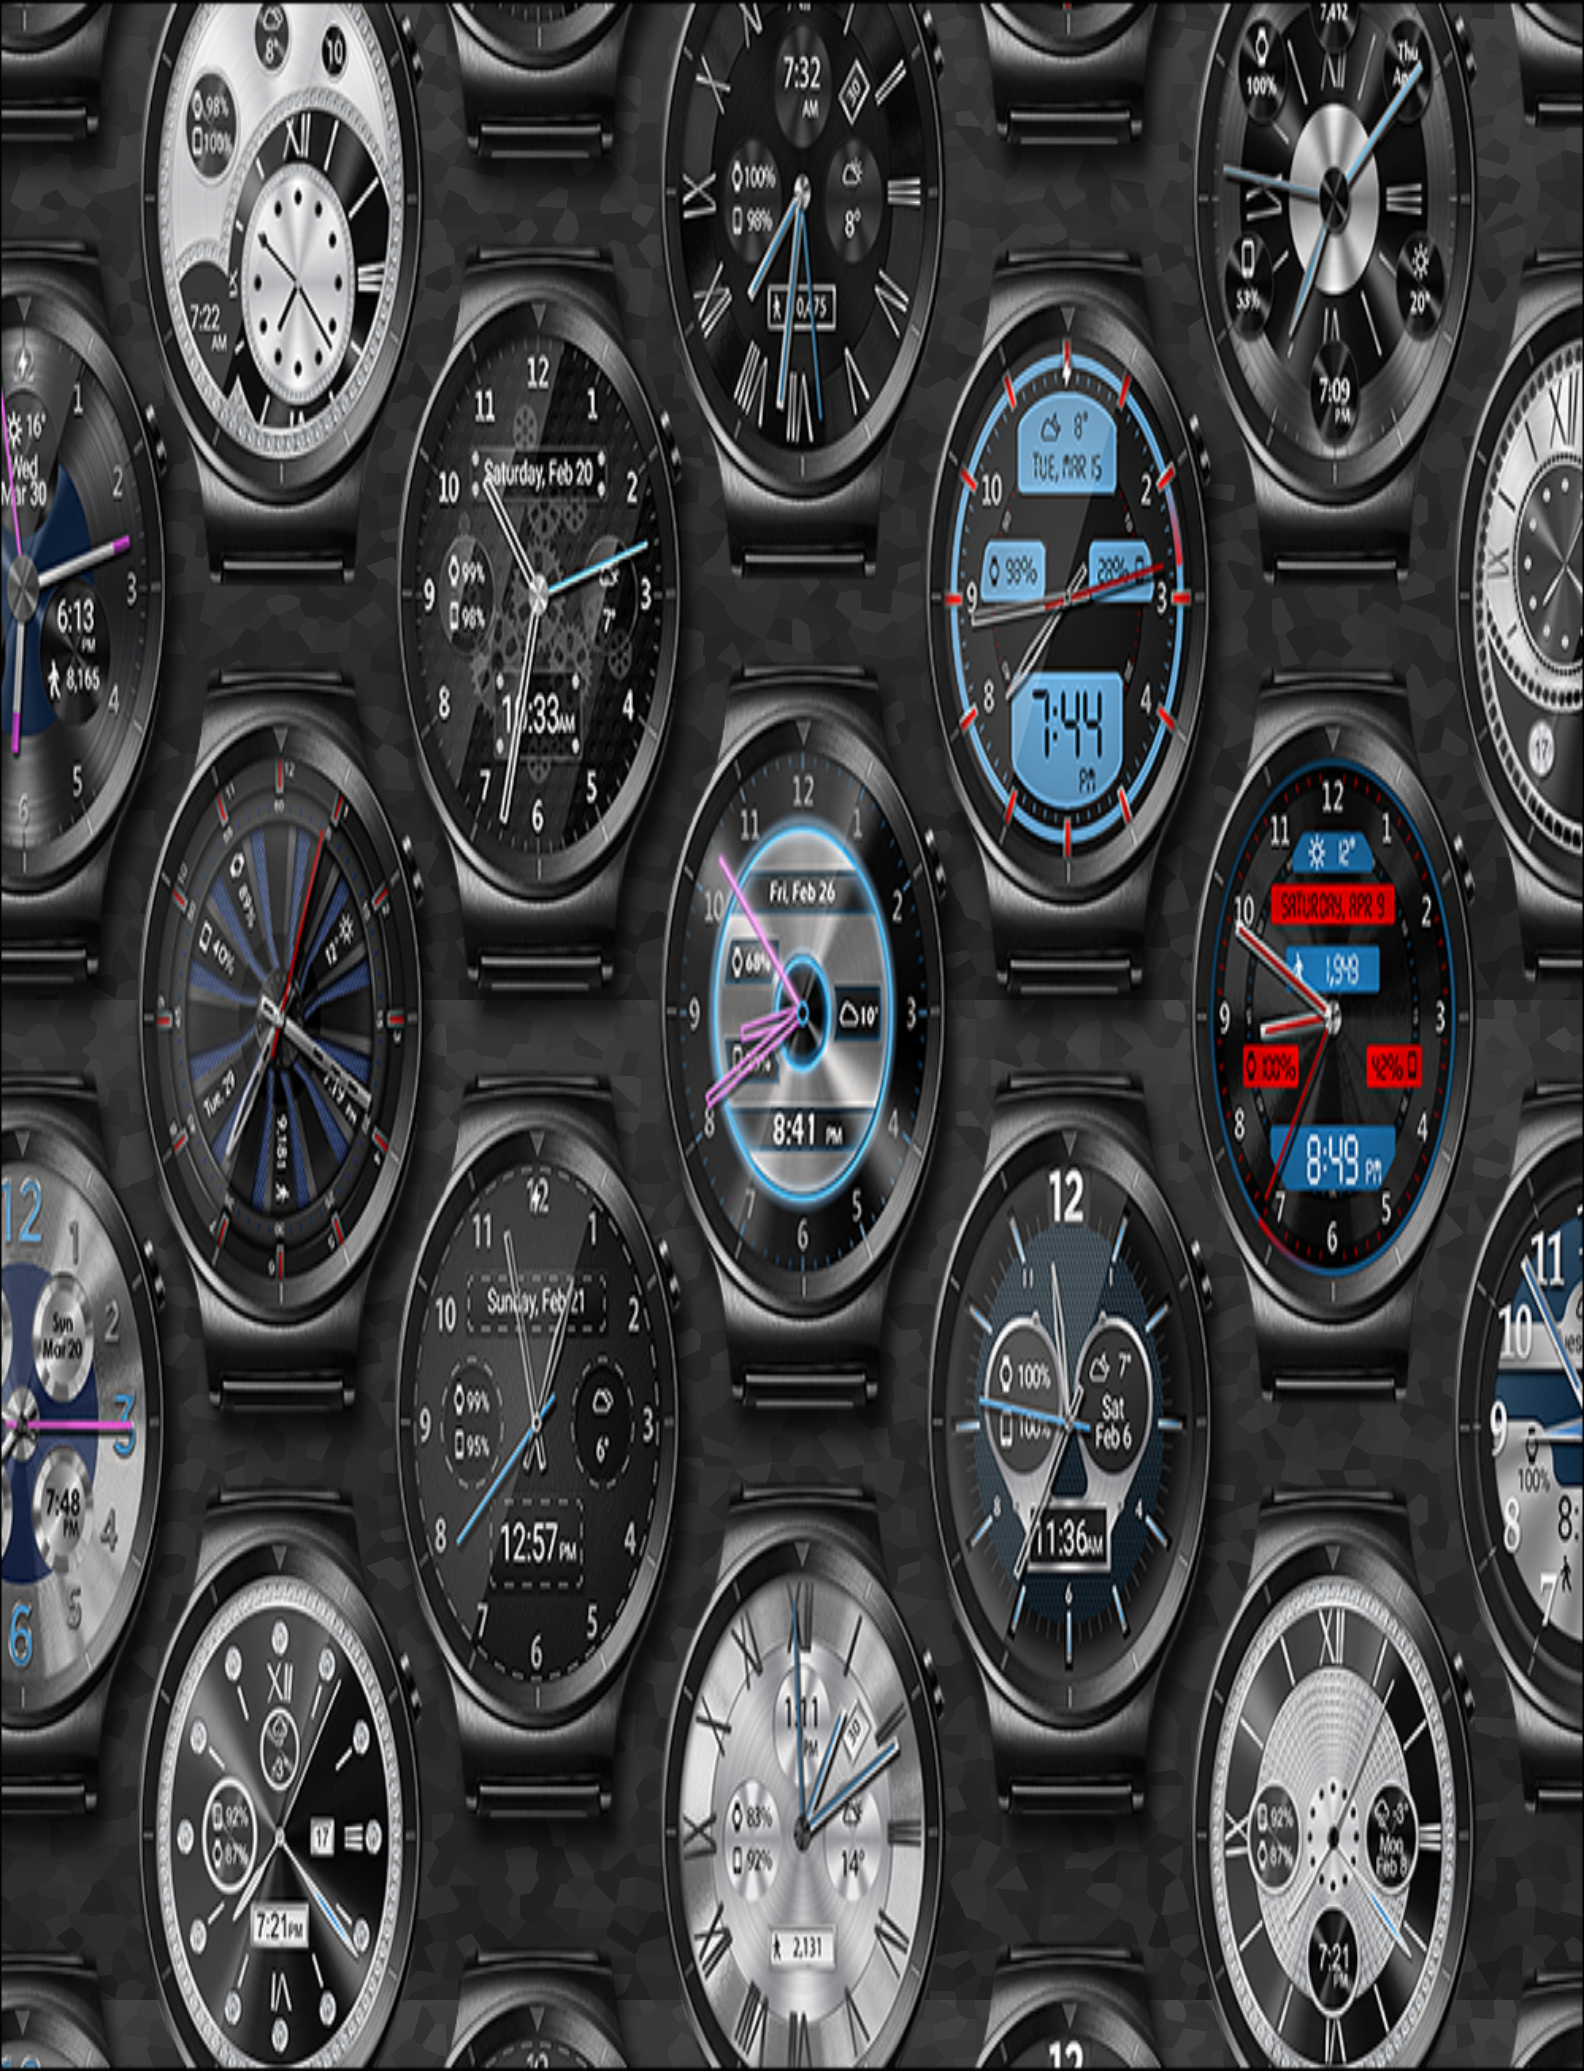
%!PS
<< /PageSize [1584 2071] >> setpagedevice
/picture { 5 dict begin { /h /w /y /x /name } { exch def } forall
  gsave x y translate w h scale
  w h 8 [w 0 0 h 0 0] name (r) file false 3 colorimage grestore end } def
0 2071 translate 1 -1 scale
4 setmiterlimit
1 setgray
0 0 1584 2071 rectfill
(img1.rgb) 0 0 1584 2071 picture
(img2.rgb) 0 0 1584 2071 picture
showpage
